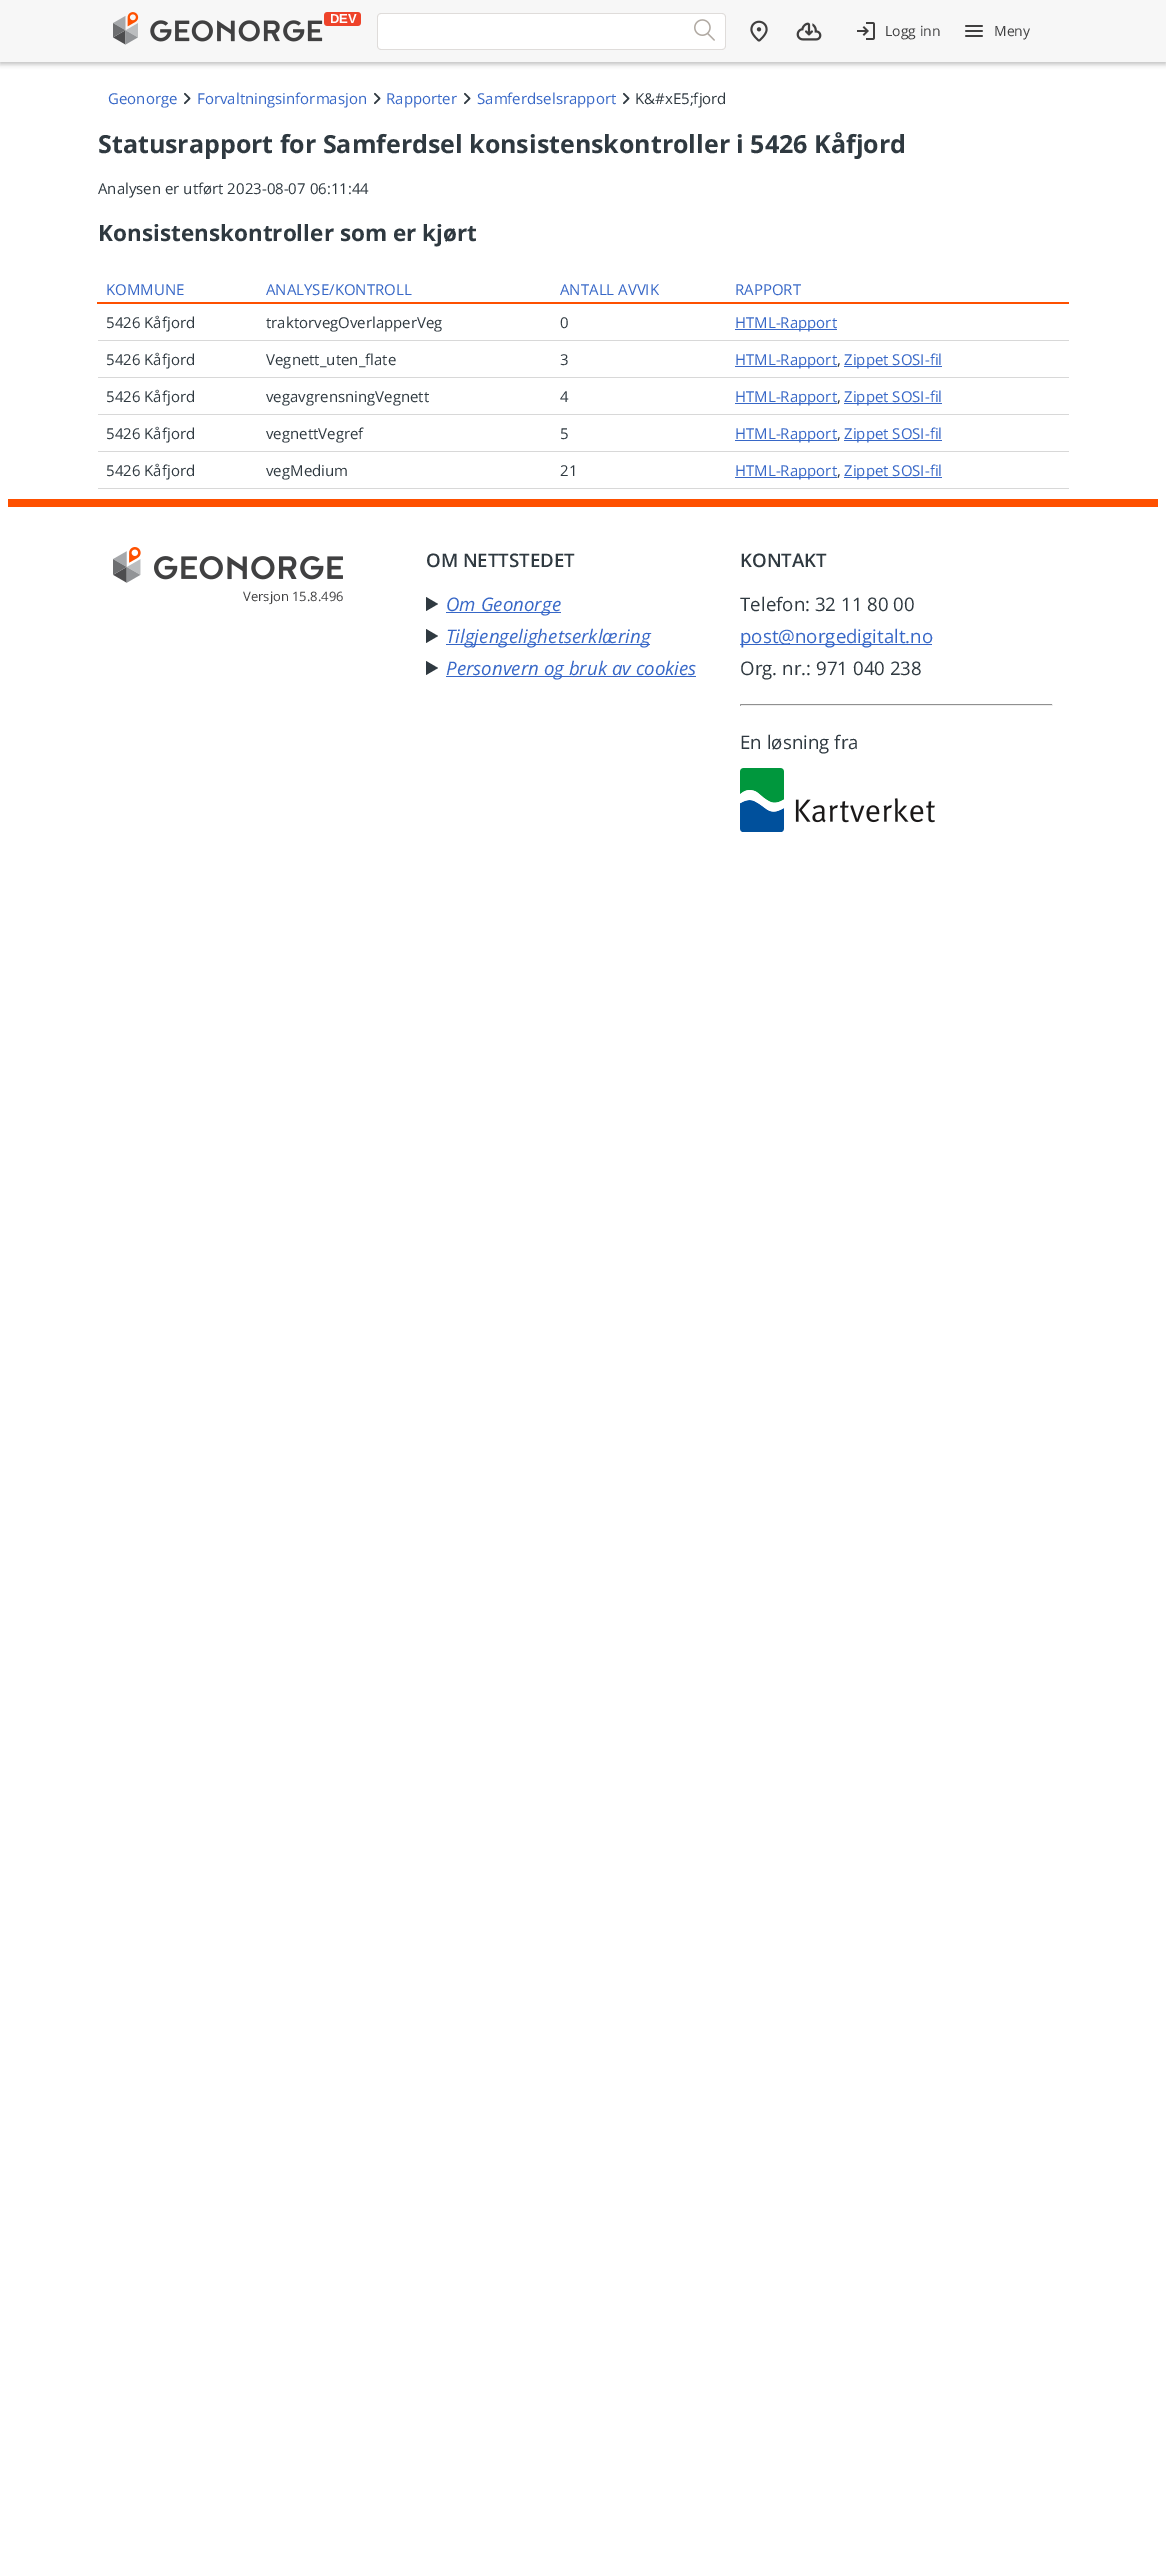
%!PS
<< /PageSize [1166 2558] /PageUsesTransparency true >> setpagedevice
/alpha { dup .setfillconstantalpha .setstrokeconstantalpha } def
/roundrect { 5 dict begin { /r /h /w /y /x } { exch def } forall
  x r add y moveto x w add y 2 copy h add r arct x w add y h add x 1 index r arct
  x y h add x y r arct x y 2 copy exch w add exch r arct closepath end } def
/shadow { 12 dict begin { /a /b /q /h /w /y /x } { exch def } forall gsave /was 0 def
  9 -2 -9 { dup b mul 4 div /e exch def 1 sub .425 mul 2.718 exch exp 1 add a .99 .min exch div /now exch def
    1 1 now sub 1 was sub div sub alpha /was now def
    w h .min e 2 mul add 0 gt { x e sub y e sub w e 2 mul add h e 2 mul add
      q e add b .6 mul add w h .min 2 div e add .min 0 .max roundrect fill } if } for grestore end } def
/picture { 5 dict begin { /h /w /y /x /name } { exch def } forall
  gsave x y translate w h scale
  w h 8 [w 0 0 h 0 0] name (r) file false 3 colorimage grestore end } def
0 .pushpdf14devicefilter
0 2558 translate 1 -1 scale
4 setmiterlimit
1 setgray
0 0 1166 2558 rectfill
0 setgray
0 2 1166 62 0 2.5 0.26 shadow
0.969 setgray
0 0 1166 62 rectfill
(img1.rgb) 113 12 248 33 picture
/LiberationSans-Bold [13 0 0 -13 0 0] selectfont
1 setgray
330 23 moveto (DEV) show
newpath 381 13 moveto 684 13 lineto 684 50 lineto 381 50 lineto 379 50 377 48 377 46 curveto 377 17 lineto 377 15 379 13 381 13 curveto closepath fill
0.875 0.863 0.855 setrgbcolor
newpath 381 13 moveto 684 13 lineto 684 50 lineto 381 50 lineto 379 50 377 48 377 46 curveto 377 17 lineto 377 15 379 13 381 13 curveto closepath 381 14 moveto 684 14 lineto 684 49 lineto 381 49 lineto 379 49 378 48 378 46 curveto 378 17 lineto 378 15 379 14 381 14 curveto closepath eofill
1 setgray
newpath 684 13 moveto 722 13 lineto 724 13 726 15 726 17 curveto 726 46 lineto 726 48 724 50 722 50 curveto 684 50 lineto closepath fill
0.875 0.863 0.855 setrgbcolor
newpath 684 13 moveto 722 13 lineto 724 13 726 15 726 17 curveto 726 46 lineto 726 48 724 50 722 50 curveto 684 50 lineto closepath 684 14 moveto 722 14 lineto 724 14 725 15 725 17 curveto 725 46 lineto 725 48 724 49 722 49 curveto 684 49 lineto closepath eofill
(img2.rgb) 694 19 21 22 picture
(img3.rgb) 750 20 18 22 picture
(img4.rgb) 796 22 26 19 picture
(img5.rgb) 857 22 18 18 picture
/OpenSans-Regular [14 0 0 -14 0 0] selectfont
0.251 0.251 0.255 setrgbcolor
885 36 moveto (Logg inn) show
(img6.rgb) 965 25 18 12 picture
994 36 moveto (Meny) show
/OpenSans-Regular [15 0 0 -15 0 0] selectfont
0.216 0.404 0.78 setrgbcolor
108 104 moveto (Geonorge) show
(img7.rgb) 184 92 7 13 picture
197 104 moveto (Forvaltningsinformasjon) show
(img7.rgb) 374 92 7 13 picture
386 104 moveto (Rapporter) show
(img7.rgb) 464 92 7 13 picture
477 104 moveto (Samferdselsrapport) show
(img7.rgb) 623 92 7 13 picture
0.184 0.224 0.251 setrgbcolor
635 104 moveto (K&#xE5;fjord) show
/OpenSans-Bold [25 0 0 -25 0 0] selectfont
98 153 moveto (Statusrapport for Samferdsel konsistenskontroller i 5426 Kåfjord) show
/OpenSans-Regular [15 0 0 -15 0 0] selectfont
98 194 moveto (Analysen er utført 2023-08-07 06:11:44) show
/OpenSans-Bold [22.5 0 0 -22.5 0 0] selectfont
98 241 moveto (Konsistenskontroller som er kjørt) show
/OpenSans-Regular [15 0 0 -15 0 0] selectfont
0.216 0.404 0.78 setrgbcolor
106 295 moveto (KOMMUNE) show
266 295 moveto (ANALYSE/KONTROLL) show
560 295 moveto (ANTALL AVVIK) show
0.996 0.314 0 setrgbcolor
97 302 972 2 rectfill
0.216 0.404 0.78 setrgbcolor
735 295 moveto (RAPPORT) show
0.184 0.224 0.251 setrgbcolor
106 328 moveto (5426 Kåfjord) show
266 328 moveto (traktorvegOverlapperVeg) show
560 328 moveto (0) show
0.847 setgray
98 340 971 1 rectfill
0.216 0.404 0.78 setrgbcolor
735 329 102 1 rectfill
735 328 moveto (HTML-Rapport) show
0.184 0.224 0.251 setrgbcolor
106 365 moveto (5426 Kåfjord) show
266 365 moveto (Vegnett_uten_flate) show
560 365 moveto (3) show
0.847 setgray
98 377 971 1 rectfill
0.216 0.404 0.78 setrgbcolor
735 366 102 1 rectfill
735 365 moveto (HTML-Rapport) show
0.184 0.224 0.251 setrgbcolor
837 365 moveto (,) show
0.216 0.404 0.78 setrgbcolor
844 366 98 1 rectfill
844 365 moveto (Zippet SOSI-fil) show
0.184 0.224 0.251 setrgbcolor
106 402 moveto (5426 Kåfjord) show
266 402 moveto (vegavgrensningVegnett) show
560 402 moveto (4) show
0.847 setgray
98 414 971 1 rectfill
0.216 0.404 0.78 setrgbcolor
735 403 102 1 rectfill
735 402 moveto (HTML-Rapport) show
0.184 0.224 0.251 setrgbcolor
837 402 moveto (,) show
0.216 0.404 0.78 setrgbcolor
844 403 98 1 rectfill
844 402 moveto (Zippet SOSI-fil) show
0.184 0.224 0.251 setrgbcolor
106 439 moveto (5426 Kåfjord) show
266 439 moveto (vegnettVegref) show
560 439 moveto (5) show
0.847 setgray
98 451 971 1 rectfill
0.216 0.404 0.78 setrgbcolor
735 440 102 1 rectfill
735 439 moveto (HTML-Rapport) show
0.184 0.224 0.251 setrgbcolor
837 439 moveto (,) show
0.216 0.404 0.78 setrgbcolor
844 440 98 1 rectfill
844 439 moveto (Zippet SOSI-fil) show
0.184 0.224 0.251 setrgbcolor
106 476 moveto (5426 Kåfjord) show
266 476 moveto (vegMedium) show
560 476 moveto (21) show
0.847 setgray
98 488 971 1 rectfill
0.216 0.404 0.78 setrgbcolor
735 477 102 1 rectfill
735 476 moveto (HTML-Rapport) show
0.184 0.224 0.251 setrgbcolor
837 476 moveto (,) show
0.216 0.404 0.78 setrgbcolor
844 477 98 1 rectfill
844 476 moveto (Zippet SOSI-fil) show
0.996 0.314 0 setrgbcolor
8 499 1150 8 rectfill
(img8.rgb) 113 547 230 36 picture
/OpenSans-Regular [13 0 0 -13 0 0] selectfont
0.251 0.251 0.255 setrgbcolor
243 601 moveto (Versjon 15.8.496) show
/OpenSans-SemiBold [18.7 0 0 -18.7 0 0] selectfont
0.184 0.224 0.251 setrgbcolor
426 567 moveto (OM NETTSTEDET) show
newpath 426 611 moveto 426 597 lineto 438 604 lineto closepath fill
0.216 0.404 0.78 setrgbcolor
446 612 115 1 rectfill
/OpenSans-Italic [18.7 0 0 -18.7 0 0] selectfont
446 611 moveto (Om Geonorge) show
0.184 0.224 0.251 setrgbcolor
newpath 426 643 moveto 426 629 lineto 438 636 lineto closepath fill
0.216 0.404 0.78 setrgbcolor
446 644 204 1 rectfill
446 643 moveto (Tilgjengelighetserklæring) show
0.184 0.224 0.251 setrgbcolor
newpath 426 675 moveto 426 661 lineto 438 668 lineto closepath fill
0.216 0.404 0.78 setrgbcolor
446 676 250 1 rectfill
446 675 moveto (Personvern og bruk av cookies) show
/OpenSans-SemiBold [18.7 0 0 -18.7 0 0] selectfont
0.184 0.224 0.251 setrgbcolor
740 567 moveto (KONTAKT) show
/OpenSans-Regular [18.7 0 0 -18.7 0 0] selectfont
740 611 moveto (Telefon: 32 11 80 00) show
0.216 0.404 0.78 setrgbcolor
740 644 192 1 rectfill
740 643 moveto (post@norgedigitalt.no) show
0.184 0.224 0.251 setrgbcolor
740 675 moveto (Org. nr.: 971 040 238) show
0.565 setgray
740 704 313 1 rectfill
0.933 setgray
1052 704 1 2 rectfill
740 705 313 1 rectfill
0.624 setgray
740 704 1 2 rectfill
0.184 0.224 0.251 setrgbcolor
740 749 moveto (En løsning fra) show
(img9.rgb) 740 768 195 64 picture
.poppdf14devicefilter showpage
